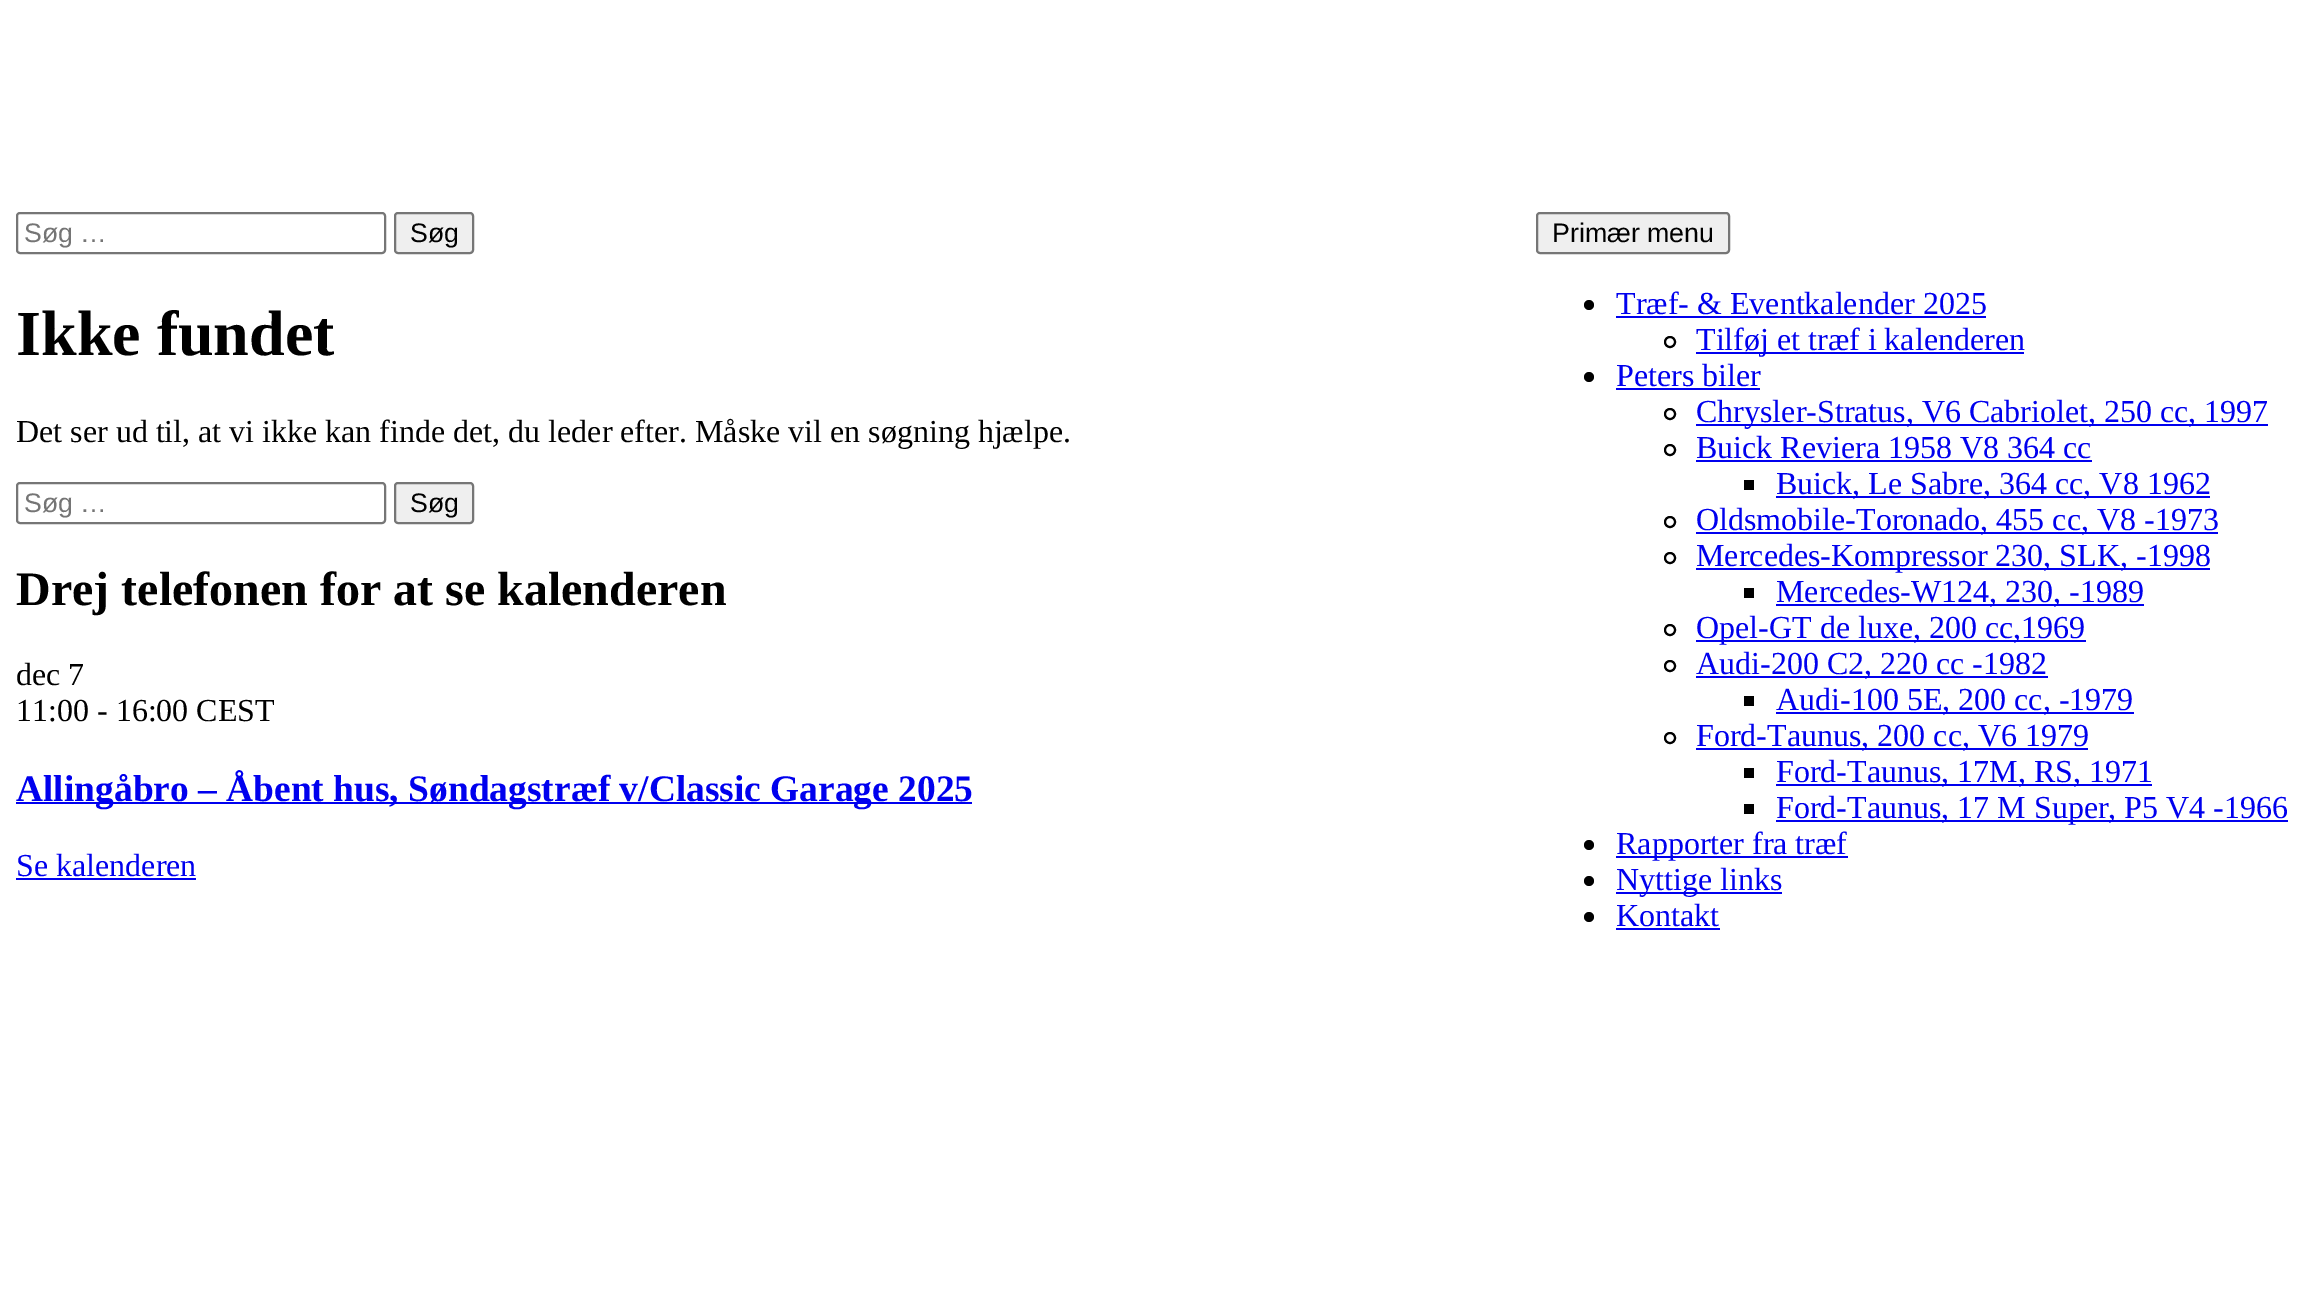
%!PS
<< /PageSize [2303 1308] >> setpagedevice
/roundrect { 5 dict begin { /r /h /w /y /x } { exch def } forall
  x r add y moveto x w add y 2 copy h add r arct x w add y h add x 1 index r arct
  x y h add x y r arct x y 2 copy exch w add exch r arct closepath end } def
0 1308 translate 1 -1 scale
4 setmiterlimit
1 setgray
0 0 2303 1308 rectfill
0.463 setgray
2 setlinewidth
17 213 368 40 3 roundrect stroke
/LiberationSans-Regular [26.75 0 0 -26.75 0 0] selectfont
0.459 setgray
24 242 moveto (Søg …) show
0.937 setgray
395 213 78 40 3 roundrect gsave fill grestore
0.463 setgray
stroke
0 setgray
410 242 moveto (Søg) show
0.937 setgray
1537 213 192 40 3 roundrect gsave fill grestore
0.463 setgray
stroke
0 setgray
1552 242 moveto (Primær menu) show
newpath 1589 305 5 0 360 arc closepath fill
/LiberationSerif-Regular [32 0 0 -32 0 0] selectfont
0 0 0.933 setrgbcolor
1616 314 moveto (Træf- & Eventkalender 2025) show
1616 316 370 2 rectfill
0 setgray
newpath 1670 342 5 0 360 arc closepath stroke
0 0 0.933 setrgbcolor
1696 352 328 2 rectfill
1696 350 moveto (Tilføj et træf i kalenderen) show
0 setgray
newpath 1589 377 5 0 360 arc closepath fill
0 0 0.933 setrgbcolor
1616 386 moveto (Peters biler) show
1616 388 144 2 rectfill
0 setgray
newpath 1670 414 5 0 360 arc closepath stroke
0 0 0.933 setrgbcolor
1696 424 572 2 rectfill
1696 422 moveto (Chrysler-Stratus, V6 Cabriolet, 250 cc, 1997) show
0 setgray
newpath 1670 450 5 0 360 arc closepath stroke
0 0 0.933 setrgbcolor
1696 458 moveto (Buick Reviera 1958 V8 364 cc) show
1696 460 396 2 rectfill
0 setgray
1744 480 10 10 rectfill
0 0 0.933 setrgbcolor
1776 496 434 2 rectfill
1776 494 moveto (Buick, Le Sabre, 364 cc, V8 1962) show
0 setgray
newpath 1670 522 5 0 360 arc closepath stroke
0 0 0.933 setrgbcolor
1696 532 522 2 rectfill
1696 530 moveto (Oldsmobile-Toronado, 455 cc, V8 -1973) show
0 setgray
newpath 1670 558 5 0 360 arc closepath stroke
0 0 0.933 setrgbcolor
1696 568 514 2 rectfill
1696 566 moveto (Mercedes-Kompressor 230, SLK, -1998) show
0 setgray
1744 588 10 10 rectfill
0 0 0.933 setrgbcolor
1776 604 368 2 rectfill
1776 602 moveto (Mercedes-W124, 230, -1989) show
0 setgray
newpath 1670 630 5 0 360 arc closepath stroke
0 0 0.933 setrgbcolor
1696 640 390 2 rectfill
1696 638 moveto (Opel-GT de luxe, 200 cc,1969) show
0 setgray
newpath 1670 666 5 0 360 arc closepath stroke
0 0 0.933 setrgbcolor
1696 676 352 2 rectfill
1696 674 moveto (Audi-200 C2, 220 cc -1982) show
0 setgray
1744 696 10 10 rectfill
0 0 0.933 setrgbcolor
1776 712 358 2 rectfill
1776 710 moveto (Audi-100 5E, 200 cc, -1979) show
0 setgray
newpath 1670 738 5 0 360 arc closepath stroke
0 0 0.933 setrgbcolor
1696 748 392 2 rectfill
1696 746 moveto (Ford-Taunus, 200 cc, V6 1979) show
0 setgray
1744 768 10 10 rectfill
0 0 0.933 setrgbcolor
1776 784 376 2 rectfill
1776 782 moveto (Ford-Taunus, 17M, RS, 1971) show
0 setgray
1744 804 10 10 rectfill
0 0 0.933 setrgbcolor
1776 820 512 2 rectfill
1776 818 moveto (Ford-Taunus, 17 M Super, P5 V4 -1966) show
0 setgray
newpath 1589 845 5 0 360 arc closepath fill
0 0 0.933 setrgbcolor
1616 856 232 2 rectfill
1616 854 moveto (Rapporter fra træf) show
0 setgray
newpath 1589 881 5 0 360 arc closepath fill
0 0 0.933 setrgbcolor
1616 892 166 2 rectfill
1616 890 moveto (Nyttige links) show
0 setgray
newpath 1589 917 5 0 360 arc closepath fill
0 0 0.933 setrgbcolor
1616 926 moveto (Kontakt) show
1616 928 104 2 rectfill
/LiberationSerif-Bold [64 0 0 -64 0 0] selectfont
0 setgray
16 355 moveto (Ikke fundet) show
/LiberationSerif-Regular [32 0 0 -32 0 0] selectfont
16 442 moveto (Det ser ud til, at vi ikke kan finde det, du leder efter. Måske vil en søgning hjælpe.) show
0.463 setgray
17 483 368 40 3 roundrect stroke
/LiberationSans-Regular [26.75 0 0 -26.75 0 0] selectfont
0.459 setgray
24 512 moveto (Søg …) show
0.937 setgray
395 483 78 40 3 roundrect gsave fill grestore
0.463 setgray
stroke
0 setgray
410 512 moveto (Søg) show
/LiberationSerif-Bold [48 0 0 -48 0 0] selectfont
16 605 moveto (Drej telefonen for at se kalenderen) show
/LiberationSerif-Regular [32 0 0 -32 0 0] selectfont
16 685 moveto (dec 7) show
16 721 moveto (11:00 - 16:00 CEST) show
0 0 0.933 setrgbcolor
16 802 956 2 rectfill
/LiberationSerif-Bold [37.45 0 0 -37.45 0 0] selectfont
16 801 moveto (Allingåbro – Åbent hus, Søndagstræf v/Classic Garage 2025) show
/LiberationSerif-Regular [32 0 0 -32 0 0] selectfont
16 876 moveto (Se kalenderen) show
16 878 180 2 rectfill
showpage
